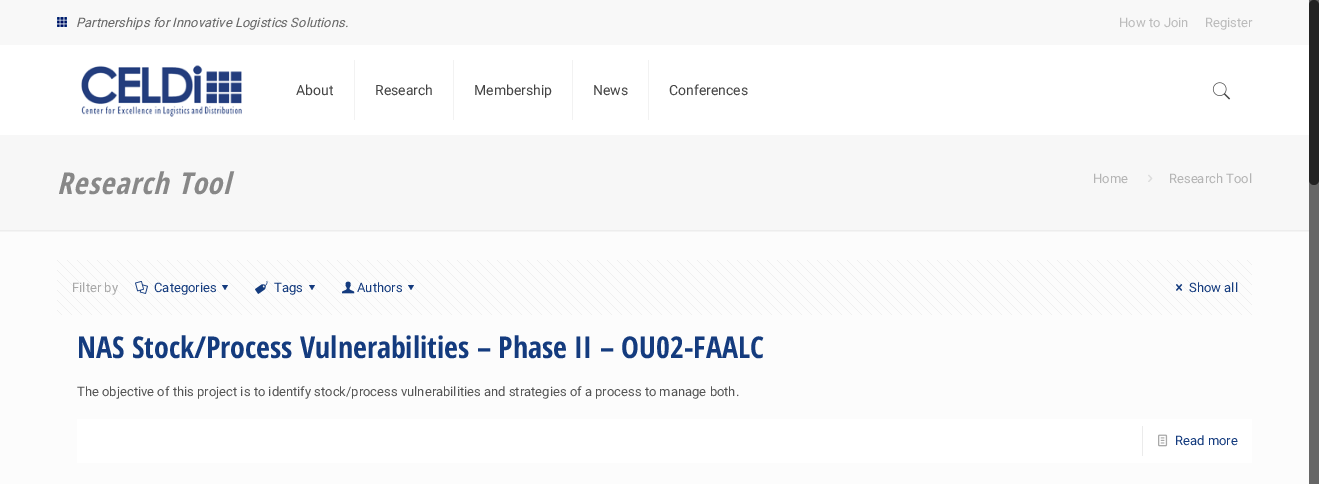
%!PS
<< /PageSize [1319 484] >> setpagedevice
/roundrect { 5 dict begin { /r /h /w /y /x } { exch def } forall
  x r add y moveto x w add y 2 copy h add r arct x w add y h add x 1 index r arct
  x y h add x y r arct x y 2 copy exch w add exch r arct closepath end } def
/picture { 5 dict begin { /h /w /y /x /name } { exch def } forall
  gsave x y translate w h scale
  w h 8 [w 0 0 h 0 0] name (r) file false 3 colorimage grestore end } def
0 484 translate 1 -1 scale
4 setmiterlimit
0.988 setgray
0 0 1319 484 rectfill
0.973 setgray
0 0 1309 45 rectfill
(img1.rgb) 57 17 10 10 picture
/Roboto-Italic [13 0 0 -13 0 0] selectfont
0.4 setgray
76 27 moveto (Partnerships for Innovative Logistics Solutions.) show
/Roboto-Regular [13 0 0 -13 0 0] selectfont
0.733 setgray
1119 27 moveto (How to Join) show
1205 27 moveto (Register) show
1 setgray
0 45 1309 90 rectfill
(img2.rgb) 81 65 161 52 picture
0.949 setgray
354 60 1 60 rectfill
/Roboto-Regular [14 0 0 -14 0 0] selectfont
0.267 setgray
296 95 moveto (About) show
0.949 setgray
453 60 1 60 rectfill
0.267 setgray
375 95 moveto (Research) show
0.949 setgray
572 60 1 60 rectfill
0.267 setgray
474 95 moveto (Membership) show
0.949 setgray
648 60 1 60 rectfill
0.267 setgray
593 95 moveto (News) show
669 95 moveto (Conferences) show
(img3.rgb) 1212 82 19 18 picture
0.969 setgray
0 135 1309 95 rectfill
/OpenSansCondensed-BoldItalic [30 0 0 -30 0 0] selectfont
0.533 setgray
57 194 moveto 1 0 (Research Tool) ashow
/Roboto-Regular [13 0 0 -13 0 0] selectfont
0.706 setgray
1093 183 moveto (Home) show
(img4.rgb) 1148 174 5 8 picture
1169 183 moveto (Research Tool) show
(img5.rgb) 0 230 1309 2 picture
(img6.rgb) 57 260 1195 55 picture
0.659 setgray
72 292 moveto (Filter by) show
(img7.rgb) 135 281 13 13 picture
0.078 0.231 0.494 setrgbcolor
154 292 moveto (Categories) show
newpath 228 285 moveto 225 290 lineto 222 285 lineto closepath fill
(img8.rgb) 255 281 13 13 picture
274 292 moveto (Tags) show
newpath 315 285 moveto 312 290 lineto 309 285 lineto closepath fill
(img9.rgb) 342 281 13 13 picture
357 292 moveto (Authors) show
newpath 414 285 moveto 411 290 lineto 408 285 lineto closepath fill
(img10.rgb) 1176 284 7 7 picture
1189 292 moveto (Show all) show
/OpenSansCondensed-Bold [30 0 0 -30 0 0] selectfont
77 358 moveto (NAS Stock/Process Vulnerabilities – Phase II – OU02-FAALC) show
/Roboto-Regular [13 0 0 -13 0 0] selectfont
0.333 setgray
77 396 moveto (The objective of this project is to identify stock/process vulnerabilities and strategies of a process to manage both.) show
1 setgray
77 419 1175 44 rectfill
0.922 setgray
1142 426 1 30 rectfill
(img11.rgb) 1158 434 10 13 picture
0.078 0.231 0.494 setrgbcolor
1175 445 moveto (Read more) show
0.4 setgray
1309 0 10 484 rectfill
0.133 setgray
1309 0 10 185 5 roundrect fill
showpage
